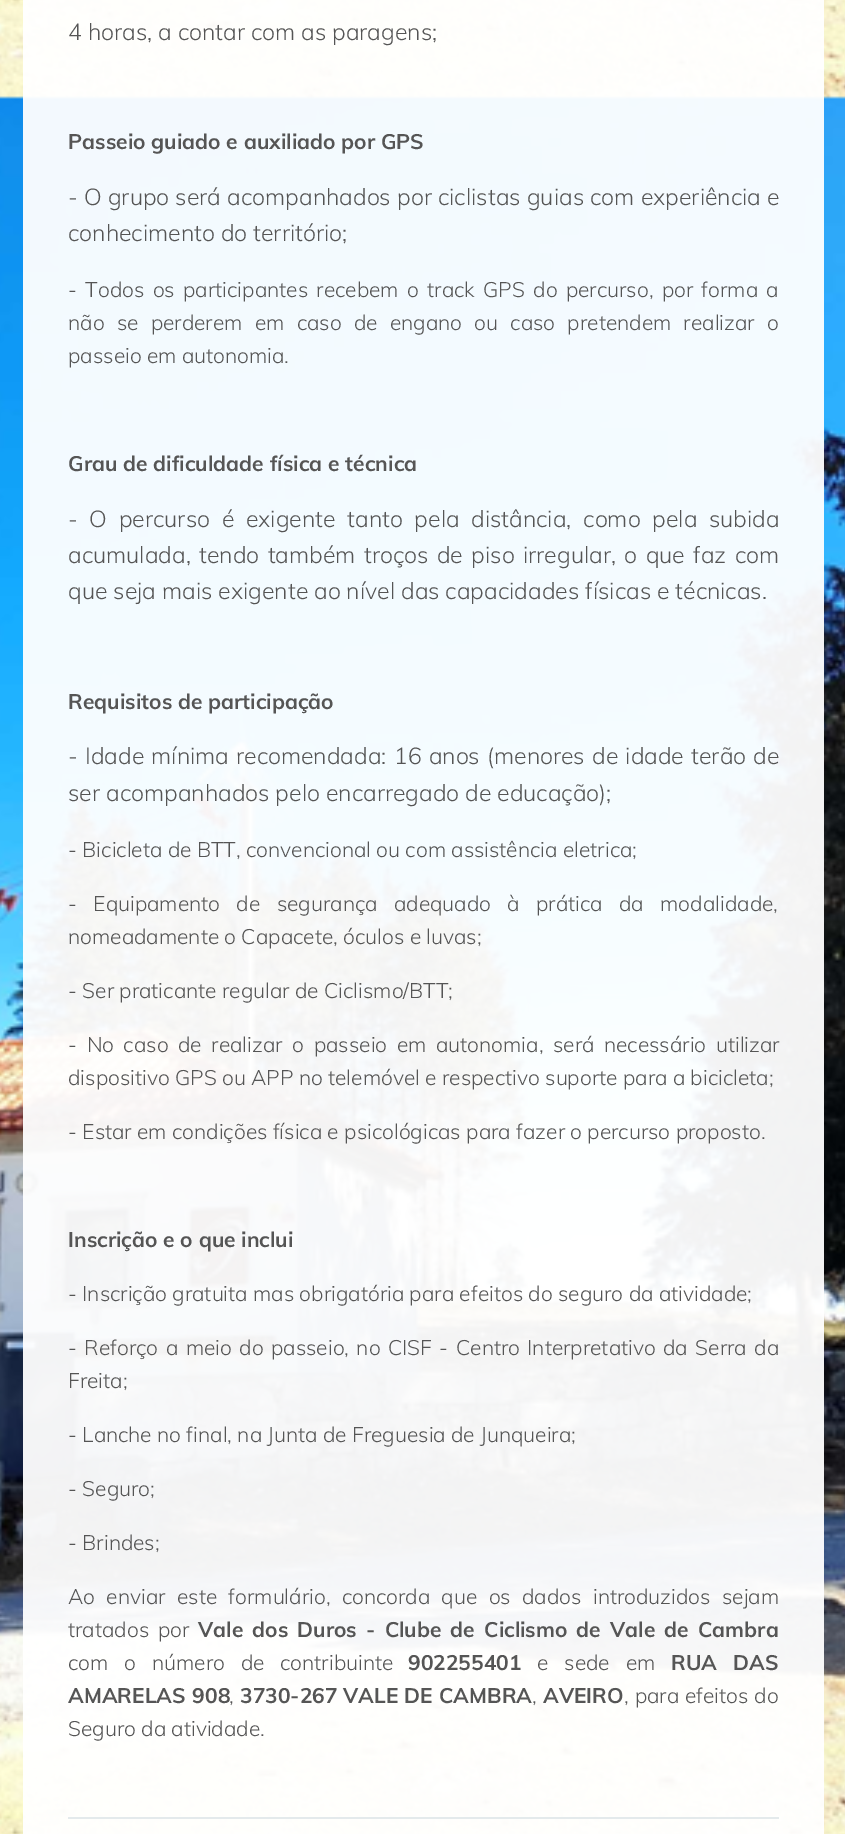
%!PS
<< /PageSize [845 1834] /PageUsesTransparency true >> setpagedevice
/alpha { dup .setfillconstantalpha .setstrokeconstantalpha } def
/picture { 5 dict begin { /h /w /y /x /name } { exch def } forall
  gsave x y translate w h scale
  w h 8 [w 0 0 h 0 0] name (r) file false 3 colorimage grestore end } def
0 .pushpdf14devicefilter
0 1834 translate 1 -1 scale
4 setmiterlimit
1 setgray
0 0 845 1834 rectfill
(img1.rgb) 0 0 845 1834 picture
0.95 alpha
23 0 801 1834 rectfill
/Muli-Light [23.1 0 0 -23.1 0 0] selectfont
1 alpha
0.333 setgray
68 40 moveto (4 horas, a contar com as paragens;) show
/Muli-Bold [21 0 0 -21 0 0] selectfont
68 149 moveto (Passeio guiado e auxiliado por GPS) show
/Muli-Light [23.1 0 0 -23.1 0 0] selectfont
68 205 moveto 0.25 0 32 (- O grupo será acompanhados por ciclistas guias com experiência e) widthshow
68 241 moveto (conhecimento do território;) show
/Muli-Light [21 0 0 -21 0 0] selectfont
68 297 moveto 3 0 32 (- Todos os participantes recebem o track GPS do percurso, por forma a) widthshow
68 330 moveto 6.9 0 32 (não se perderem em caso de engano ou caso pretendem realizar o) widthshow
68 363 moveto (passeio em autonomia.) show
/Muli-Bold [21 0 0 -21 0 0] selectfont
68 471 moveto (Grau de dificuldade física e técnica) show
/Muli-Light [23.1 0 0 -23.1 0 0] selectfont
68 527 moveto 5.75 0 32 (- O percurso é exigente tanto pela distância, como pela subida) widthshow
68 563 moveto 2.5 0 32 (acumulada, tendo também troços de piso irregular, o que faz com) widthshow
68 599 moveto (que seja mais exigente ao nível das capacidades físicas e técnicas.) show
/Muli-Bold [21 0 0 -21 0 0] selectfont
68 709 moveto (Requisitos de participação) show
/Muli-Light [23.1 0 0 -23.1 0 0] selectfont
68 764 moveto 1.25 0 32 (- Idade mínima recomendada: 16 anos \(menores de idade terão de) widthshow
68 801 moveto (ser acompanhados pelo encarregado de educação\);) show
/Muli-Light [21 0 0 -21 0 0] selectfont
68 857 moveto (- Bicicleta de BTT, convencional ou com assistência eletrica;) show
68 911 moveto 11 0 32 (- Equipamento de segurança adequado à prática da modalidade,) widthshow
68 944 moveto (nomeadamente o Capacete, óculos e luvas;) show
68 998 moveto (- Ser praticante regular de Ciclismo/BTT;) show
68 1052 moveto 4.25 0 32 (- No caso de realizar o passeio em autonomia, será necessário utilizar) widthshow
68 1085 moveto (dispositivo GPS ou APP no telemóvel e respectivo suporte para a bicicleta;) show
68 1139 moveto (- Estar em condições física e psicológicas para fazer o percurso proposto.) show
/Muli-Bold [21 0 0 -21 0 0] selectfont
68 1247 moveto (Inscrição e o que inclui) show
/Muli-Light [21 0 0 -21 0 0] selectfont
68 1301 moveto (- Inscrição gratuita mas obrigatória para efeitos do seguro da atividade;) show
68 1355 moveto 2.1 0 32 (- Reforço a meio do passeio, no CISF - Centro Interpretativo da Serra da) widthshow
68 1388 moveto (Freita;) show
68 1442 moveto (- Lanche no final, na Junta de Freguesia de Junqueira;) show
68 1496 moveto (- Seguro;) show
68 1550 moveto (- Brindes;) show
68 1604 moveto 6 0 32 (Ao enviar este formulário, concorda que os dados introduzidos sejam) widthshow
68 1637 moveto 3.4 0 32 (tratados por) widthshow
/Muli-Bold [21 0 0 -21 0 0] selectfont
198 1637 moveto 3.4 0 32 (Vale dos Duros - Clube de Ciclismo de Vale de Cambra) widthshow
/Muli-Light [21 0 0 -21 0 0] selectfont
68 1670 moveto 10.5 0 32 (com o número de contribuinte) widthshow
/Muli-Bold [21 0 0 -21 0 0] selectfont
408 1670 moveto (902255401) show
/Muli-Light [21 0 0 -21 0 0] selectfont
537 1670 moveto 10.5 0 32 (e sede em) widthshow
/Muli-Bold [21 0 0 -21 0 0] selectfont
671 1670 moveto 10.5 0 32 (RUA DAS) widthshow
68 1703 moveto 1 0 32 (AMARELAS 908) widthshow
/Muli-Light [21 0 0 -21 0 0] selectfont
229 1703 moveto (,) show
/Muli-Bold [21 0 0 -21 0 0] selectfont
240 1703 moveto (3730-267) show
343 1703 moveto 0.5 0 32 (VALE DE CAMBRA) widthshow
/Muli-Light [21 0 0 -21 0 0] selectfont
532 1703 moveto (,) show
/Muli-Bold [21 0 0 -21 0 0] selectfont
543 1703 moveto (AVEIRO) show
/Muli-Light [21 0 0 -21 0 0] selectfont
624 1703 moveto 0.5 0 32 (, para efeitos do) widthshow
68 1736 moveto (Seguro da atividade.) show
0.894 0.918 0.925 setrgbcolor
68 1817 711 2 rectfill
.poppdf14devicefilter showpage
